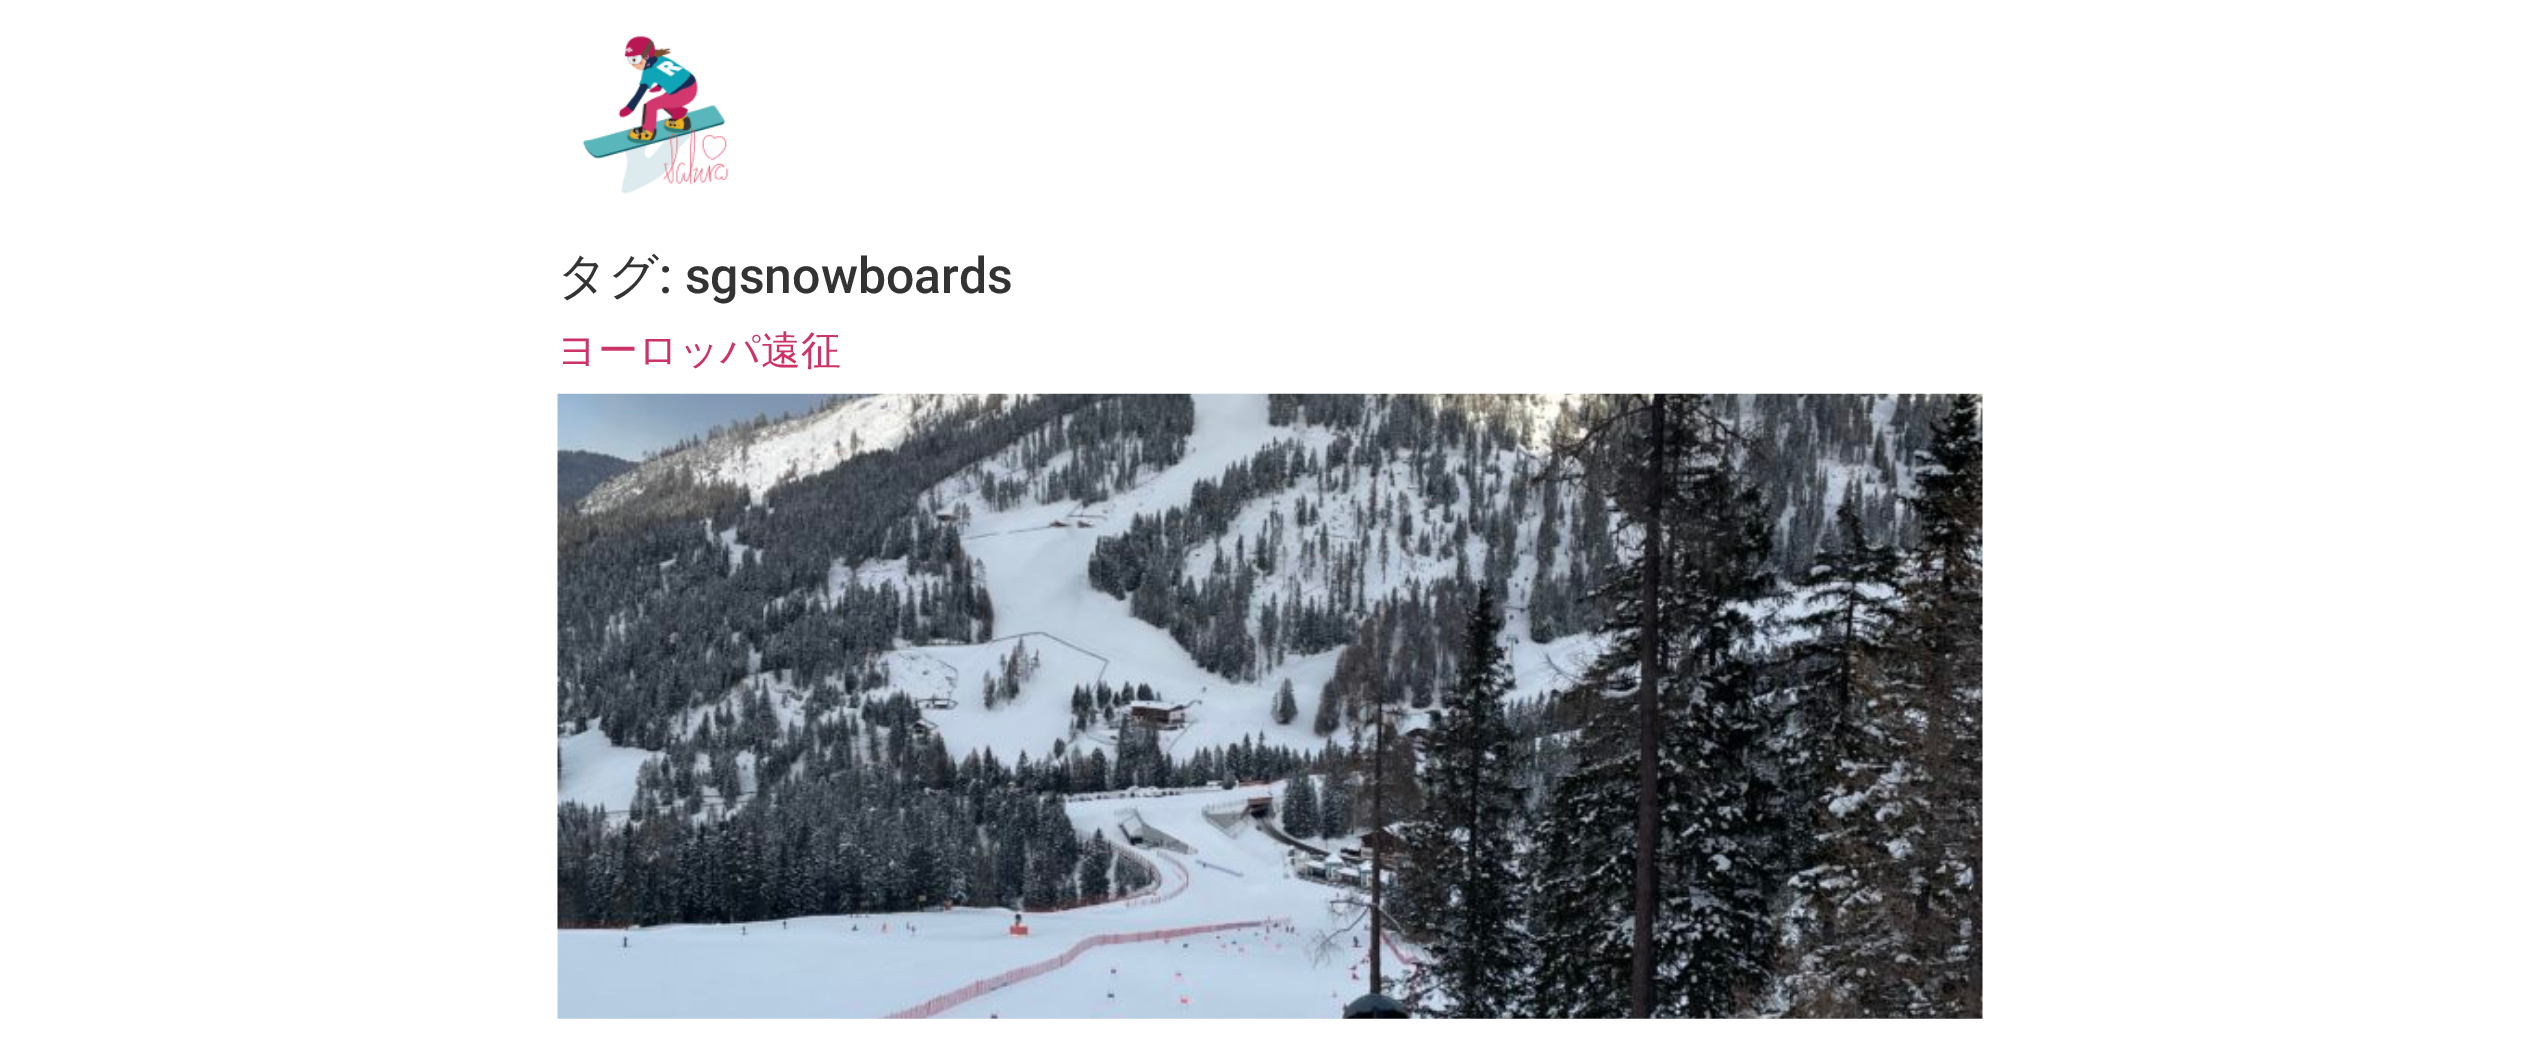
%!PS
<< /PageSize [2538 1038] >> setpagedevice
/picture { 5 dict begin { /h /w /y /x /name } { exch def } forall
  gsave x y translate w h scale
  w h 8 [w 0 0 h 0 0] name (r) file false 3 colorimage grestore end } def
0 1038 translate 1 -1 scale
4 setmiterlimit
1 setgray
0 0 2538 1038 rectfill
(img1.rgb) 582 36 147 158 picture
/WenQuanYiZenHei-Medium [50 0 0 -50 0 0] selectfont
0.2 setgray
557 293 moveto (タグ) show
/Roboto-Medium [50 0 0 -50 0 0] selectfont
659 293 moveto (: sgsnowboards) show
/WenQuanYiZenHei-Medium [40 0 0 -40 0 0] selectfont
0.8 0.2 0.4 setrgbcolor
557 364 moveto (ヨーロッパ遠征) show
(img2.rgb) 557 393 1426 626 picture
showpage
